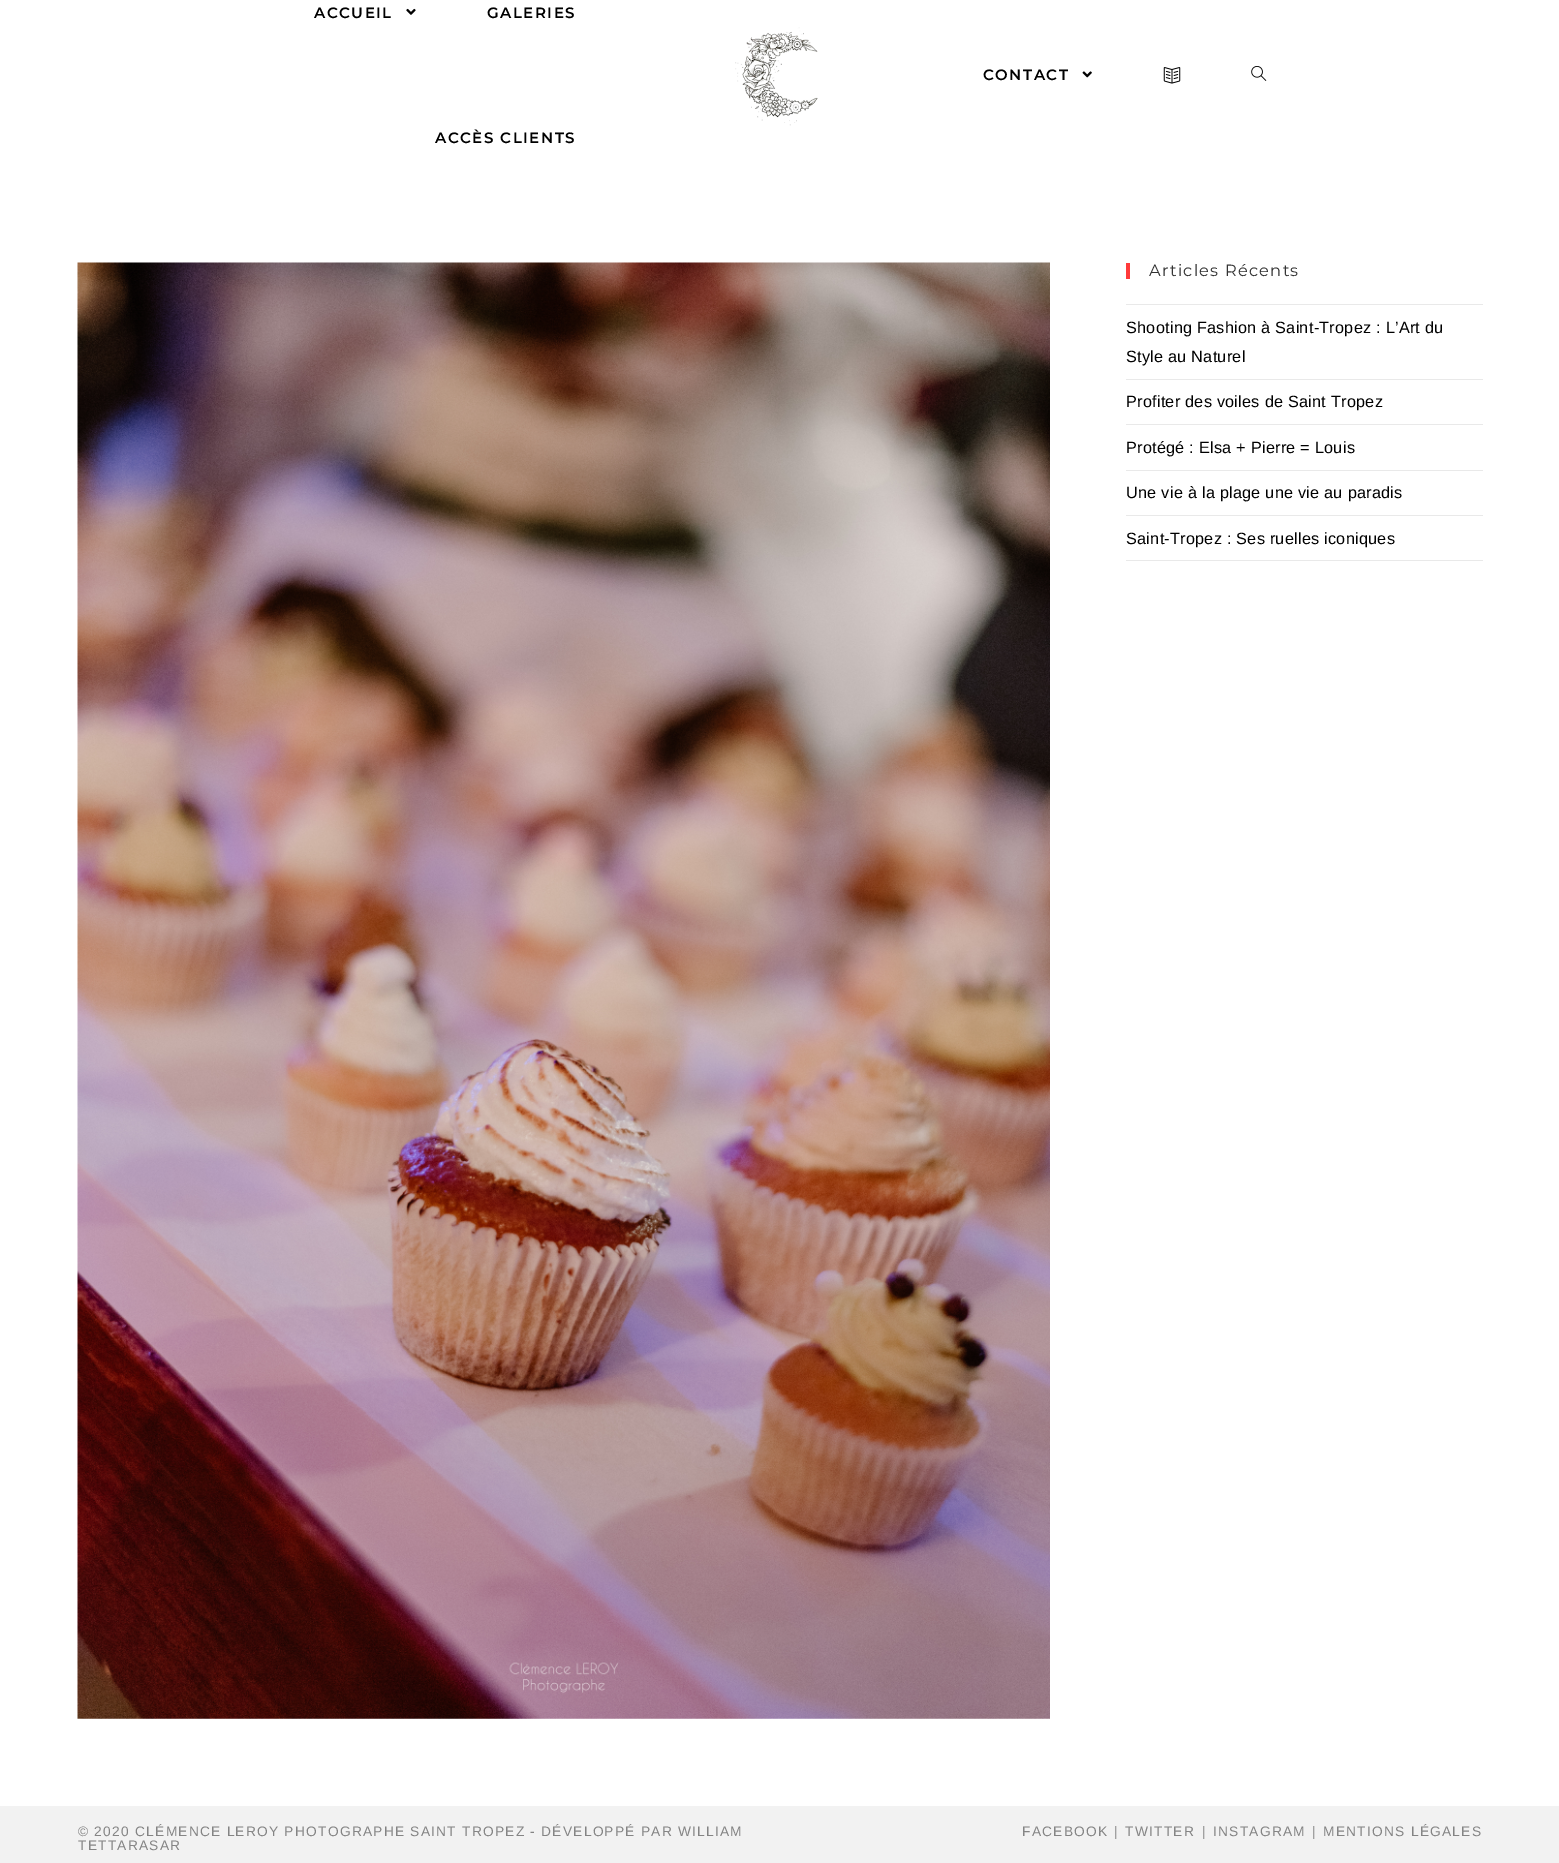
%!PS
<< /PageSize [1559 1863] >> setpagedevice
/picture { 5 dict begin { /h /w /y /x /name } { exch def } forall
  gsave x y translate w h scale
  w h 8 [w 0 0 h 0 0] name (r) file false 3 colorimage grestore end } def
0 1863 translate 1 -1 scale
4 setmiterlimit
1 setgray
0 0 1559 1863 rectfill
/Montserrat-SemiBold [15 0 0 -15 0 0] selectfont
0 setgray
314 18 moveto 1.5 0 (ACCUEIL) ashow
(img1.rgb) 406 8 10 7 picture
487 18 moveto 1.5 0 (GALERIES) ashow
435 143 moveto 1.5 0 (ACCÈS CLIENTS) ashow
(img2.rgb) 735 27 83 99 picture
983 80 moveto 1.5 0 (CONTACT) ashow
(img3.rgb) 1082 71 10 7 picture
(img4.rgb) 1163 67 18 17 picture
(img5.rgb) 1251 66 16 15 picture
(img6.rgb) 77 262 973 1457 picture
1 0.227 0.227 setrgbcolor
1126 263 4 16 rectfill
/Montserrat-Regular [16.25 0 0 -16.25 0 0] selectfont
0.2 setgray
1149 276 moveto 1.25 0 (Articles Récents) ashow
0.914 setgray
1126 304 357 1 rectfill
1126 379 357 1 rectfill
/LiberationSans-Regular [16.25 0 0 -16.25 0 0] selectfont
0 setgray
1126 333 moveto 0.25 0 (Shooting Fashion à Saint-Tropez : L’Art du) ashow
1126 362 moveto 0.25 0 (Style au Naturel) ashow
0.914 setgray
1126 424 357 1 rectfill
0 setgray
1126 407 moveto 0.25 0 (Profiter des voiles de Saint Tropez) ashow
0.914 setgray
1126 470 357 1 rectfill
0 setgray
1126 453 moveto 0.25 0 (Protégé : Elsa + Pierre = Louis) ashow
0.914 setgray
1126 515 357 1 rectfill
0 setgray
1126 498 moveto 0.25 0 (Une vie à la plage une vie au paradis) ashow
0.914 setgray
1126 560 357 1 rectfill
0 setgray
1126 544 moveto 0.25 0 (Saint-Tropez : Ses ruelles iconiques) ashow
0.949 setgray
0 1806 1559 57 rectfill
/LiberationSans-Regular [13.75 0 0 -13.75 0 0] selectfont
0.518 setgray
78 1836 moveto 1.25 0 (© 2020 CLÉMENCE LEROY PHOTOGRAPHE SAINT TROPEZ - DÉVELOPPÉ PAR WILLIAM) ashow
78 1850 moveto 1.25 0 (TETTARASAR) ashow
1022 1836 moveto 1.25 0 (FACEBOOK) ashow
1114 1836 moveto 1.25 0 (|) ashow
1125 1836 moveto 1.25 0 (TWITTER) ashow
1202 1836 moveto 1.25 0 (|) ashow
1213 1836 moveto 1.25 0 (INSTAGRAM) ashow
1312 1836 moveto 1.25 0 (|) ashow
1323 1836 moveto 1.25 0 (MENTIONS LÉGALES) ashow
showpage
